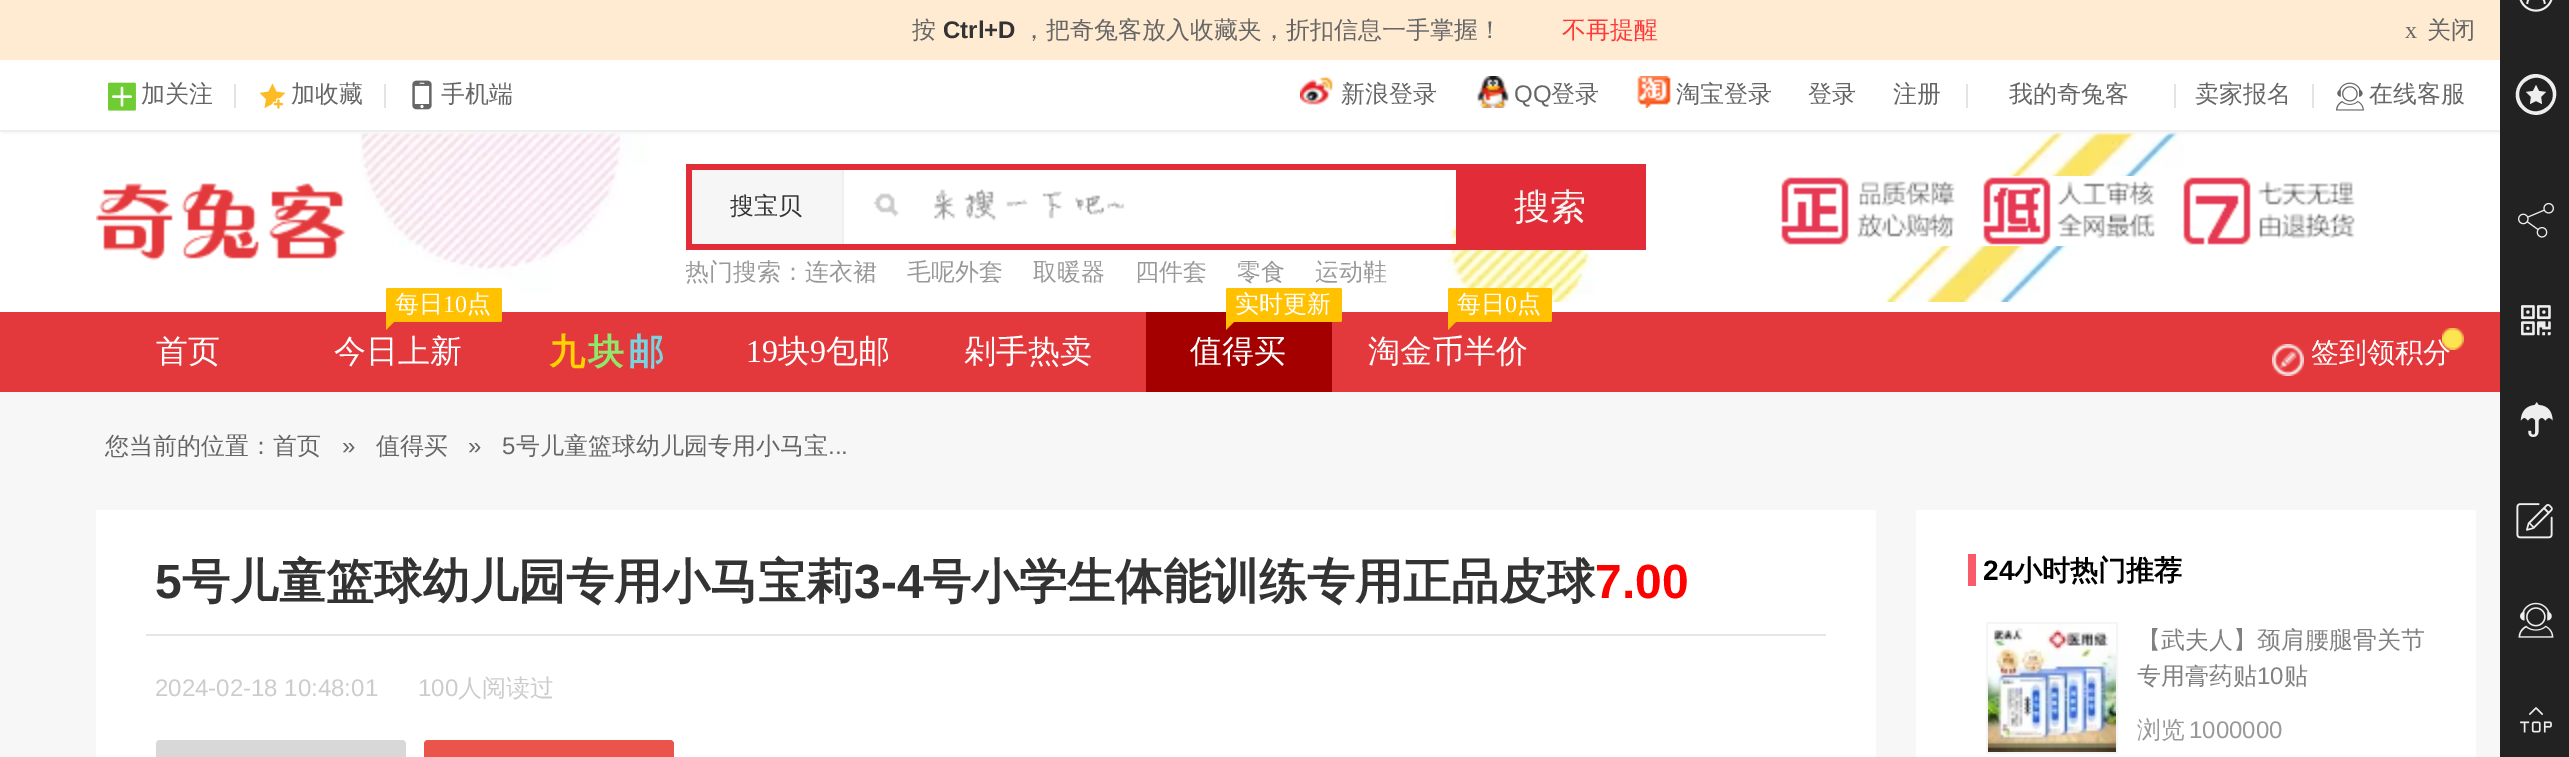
%!PS
<< /PageSize [2569 757] /PageUsesTransparency true >> setpagedevice
/alpha { dup .setfillconstantalpha .setstrokeconstantalpha } def
/roundrect { 5 dict begin { /r /h /w /y /x } { exch def } forall
  x r add y moveto x w add y 2 copy h add r arct x w add y h add x 1 index r arct
  x y h add x y r arct x y 2 copy exch w add exch r arct closepath end } def
/shadow { 12 dict begin { /a /b /q /h /w /y /x } { exch def } forall gsave /was 0 def
  9 -2 -9 { dup b mul 4 div /e exch def 1 sub .425 mul 2.718 exch exp 1 add a .99 .min exch div /now exch def
    1 1 now sub 1 was sub div sub alpha /was now def
    w h .min e 2 mul add 0 gt { x e sub y e sub w e 2 mul add h e 2 mul add
      q e add b .6 mul add w h .min 2 div e add .min 0 .max roundrect fill } if } for grestore end } def
/picture { 5 dict begin { /h /w /y /x /name } { exch def } forall
  gsave x y translate w h scale
  w h 8 [w 0 0 h 0 0] name (r) file false 3 colorimage grestore end } def
0 .pushpdf14devicefilter
0 757 translate 1 -1 scale
4 setmiterlimit
1 setgray
0 0 2569 757 rectfill
1 0.922 0.824 setrgbcolor
0 0 2500 60 rectfill
/WenQuanYiZenHei-Medium [24 0 0 -24 0 0] selectfont
0.4 setgray
912 38 moveto (按) show
/LiberationSans-Bold [24 0 0 -24 0 0] selectfont
0.2 setgray
943 38 moveto (Ctrl+D) show
/WenQuanYiZenHei-Medium [24 0 0 -24 0 0] selectfont
0.4 setgray
1022 38 moveto (，把奇兔客放入收藏夹，折扣信息一手掌握！) show
1 0.22 0.22 setrgbcolor
1562 38 moveto (不再提醒) show
/LiberationSerif-Regular [24 0 0 -24 0 0] selectfont
0.4 setgray
2405 38 moveto (x) show
/WenQuanYiZenHei-Medium [24 0 0 -24 0 0] selectfont
2427 38 moveto (关闭) show
(img8.rgb) 360 132 1824 170 picture
gsave
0 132 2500 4 rectclip
0.969 setgray
2 62 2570 72 0 1 1 shadow
grestore
0.933 setgray
0 130 2500 2 rectfill
(img1.rgb) 108 82 28 29 picture
0.4 setgray
141 102 moveto (加关注) show
0.894 setgray
234 84 2 24 rectfill
(img2.rgb) 259 83 27 26 picture
0.4 setgray
291 102 moveto (加收藏) show
0.894 setgray
384 84 2 24 rectfill
(img3.rgb) 412 80 20 30 picture
0.4 setgray
441 102 moveto (手机端) show
(img4.rgb) 1300 77 33 28 picture
1341 102 moveto (新浪登录) show
(img5.rgb) 1477 76 32 32 picture
/LiberationSans-Regular [24 0 0 -24 0 0] selectfont
1514 102 moveto (QQ) show
/WenQuanYiZenHei-Medium [24 0 0 -24 0 0] selectfont
1551 102 moveto (登录) show
(img6.rgb) 1637 76 34 32 picture
1676 102 moveto (淘宝登录) show
1808 102 moveto (登录) show
1893 102 moveto (注册) show
0.894 setgray
1966 84 2 24 rectfill
0.4 setgray
2009 102 moveto (我的奇兔客) show
0.894 setgray
2174 84 2 24 rectfill
0.4 setgray
2195 102 moveto (卖家报名) show
0.894 setgray
2312 84 2 24 rectfill
(img7.rgb) 2336 82 28 29 picture
0.4 setgray
2369 102 moveto (在线客服) show
(img9.rgb) 96 183 250 78 picture
0.886 0.173 0.216 setrgbcolor
686 164 770 6 rectfill
686 244 770 6 rectfill
686 164 6 86 rectfill
0.965 setgray
692 170 150 74 rectfill
0.937 setgray
842 170 2 74 rectfill
0.2 setgray
730 214 moveto (搜宝贝) show
(img10.rgb) 873 189 252 32 picture
0.886 0.173 0.216 setrgbcolor
1456 164 190 86 rectfill
/WenQuanYiZenHei-Medium [36 0 0 -36 0 0] selectfont
0.961 0.961 0.949 setrgbcolor
1514 219 moveto (搜索) show
gsave
686 254 960 36 rectclip
/WenQuanYiZenHei-Medium [24 0 0 -24 0 0] selectfont
0.6 setgray
685 280 moveto (热门搜索：) show
grestore
/WenQuanYiZenHei-Medium [24 0 0 -24 0 0] selectfont
0.6 setgray
805 280 moveto (连衣裙) show
907 280 moveto (毛呢外套) show
1033 280 moveto (取暖器) show
1135 280 moveto (四件套) show
1237 280 moveto (零食) show
1315 280 moveto (运动鞋) show
(img11.rgb) 1781 176 574 70 picture
0.894 0.224 0.235 setrgbcolor
0 312 2500 80 rectfill
/WenQuanYiZenHei-Medium [32 0 0 -32 0 0] selectfont
1 setgray
156 362 moveto (首页) show
1 0.757 0 setrgbcolor
386 288 116 34 2 roundrect fill
/WenQuanYiZenHei-Medium [24 0 0 -24 0 0] selectfont
1 setgray
395 312 moveto (每日) show
/LiberationSerif-Regular [24 0 0 -24 0 0] selectfont
443 312 moveto (10) show
/WenQuanYiZenHei-Medium [24 0 0 -24 0 0] selectfont
467 312 moveto (点) show
1 0.757 0 setrgbcolor
newpath 386 318 moveto 398 318 lineto 392 324 lineto closepath fill
newpath 386 330 moveto 386 318 lineto 392 324 lineto closepath fill
/WenQuanYiZenHei-Medium [32 0 0 -32 0 0] selectfont
1 setgray
334 362 moveto (今日上新) show
/WenQuanYiZenHei-Bold [36 0 0 -36 0 0] selectfont
1 0.824 0 setrgbcolor
549 364 moveto 4 0 (九) ashow
0.561 0.91 0.42 setrgbcolor
588 364 moveto 4 0 (块) ashow
0.475 0.827 0.871 setrgbcolor
628 364 moveto 4 0 (邮) ashow
/LiberationSerif-Regular [32 0 0 -32 0 0] selectfont
1 setgray
746 362 moveto (19) show
/WenQuanYiZenHei-Medium [32 0 0 -32 0 0] selectfont
778 362 moveto (块) show
/LiberationSerif-Regular [32 0 0 -32 0 0] selectfont
810 362 moveto (9) show
/WenQuanYiZenHei-Medium [32 0 0 -32 0 0] selectfont
826 362 moveto (包邮) show
964 362 moveto (剁手热卖) show
0.643 0 0 setrgbcolor
1146 312 186 80 rectfill
1 0.757 0 setrgbcolor
1226 288 116 34 2 roundrect fill
/WenQuanYiZenHei-Medium [24 0 0 -24 0 0] selectfont
1 setgray
1235 312 moveto (实时更新) show
1 0.757 0 setrgbcolor
newpath 1226 318 moveto 1238 318 lineto 1232 324 lineto closepath fill
newpath 1226 330 moveto 1226 318 lineto 1232 324 lineto closepath fill
/WenQuanYiZenHei-Medium [32 0 0 -32 0 0] selectfont
1 setgray
1190 362 moveto (值得买) show
1 0.757 0 setrgbcolor
1448 288 104 34 2 roundrect fill
/WenQuanYiZenHei-Medium [24 0 0 -24 0 0] selectfont
1 setgray
1457 312 moveto (每日) show
/LiberationSerif-Regular [24 0 0 -24 0 0] selectfont
1505 312 moveto (0) show
/WenQuanYiZenHei-Medium [24 0 0 -24 0 0] selectfont
1517 312 moveto (点) show
1 0.757 0 setrgbcolor
newpath 1448 318 moveto 1460 318 lineto 1454 324 lineto closepath fill
newpath 1448 330 moveto 1448 318 lineto 1454 324 lineto closepath fill
/WenQuanYiZenHei-Medium [32 0 0 -32 0 0] selectfont
1 setgray
1368 362 moveto (淘金币半价) show
(img12.rgb) 2272 344 32 32 picture
/WenQuanYiZenHei-Medium [28 0 0 -28 0 0] selectfont
2311 362 moveto (签到领积分) show
(img13.rgb) 2442 328 22 22 picture
0.969 setgray
0 392 2500 365 rectfill
/WenQuanYiZenHei-Medium [24 0 0 -24 0 0] selectfont
0.4 setgray
105 454 moveto (您当前的位置：首页) show
/LiberationSans-Regular [24 0 0 -24 0 0] selectfont
342 454 moveto (») show
/WenQuanYiZenHei-Medium [24 0 0 -24 0 0] selectfont
376 454 moveto (值得买) show
/LiberationSans-Regular [24 0 0 -24 0 0] selectfont
468 454 moveto (») show
502 454 moveto (5) show
/WenQuanYiZenHei-Medium [24 0 0 -24 0 0] selectfont
516 454 moveto (号儿童篮球幼儿园专用小马宝) show
/LiberationSans-Regular [24 0 0 -24 0 0] selectfont
828 454 moveto (...) show
1 setgray
96 510 1780 247 rectfill
0.902 setgray
146 634 1680 2 rectfill
/LiberationSans-Bold [48 0 0 -48 0 0] selectfont
0.2 setgray
155 598 moveto (5) show
/WenQuanYiZenHei-Bold [48 0 0 -48 0 0] selectfont
182 598 moveto (号儿童篮球幼儿园专用小马宝莉) show
/LiberationSans-Bold [48 0 0 -48 0 0] selectfont
854 598 moveto (3-4) show
/WenQuanYiZenHei-Bold [48 0 0 -48 0 0] selectfont
923 598 moveto (号小学生体能训练专用正品皮球) show
/LiberationSans-Bold [48 0 0 -48 0 0] selectfont
1 0 0 setrgbcolor
1595 598 moveto (7.00) show
/LiberationSans-Regular [24 0 0 -24 0 0] selectfont
0.8 setgray
155 696 moveto (2024-02-18 10:48:01) show
418 696 moveto (100) show
/WenQuanYiZenHei-Medium [24 0 0 -24 0 0] selectfont
458 696 moveto (人阅读过) show
0.847 setgray
156 740 250 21 4 roundrect fill
0.918 0.329 0.29 setrgbcolor
424 740 250 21 4 roundrect fill
1 setgray
1916 510 560 247 rectfill
0.976 0.361 0.408 setrgbcolor
1968 554 8 32 rectfill
/LiberationSans-Bold [28 0 0 -28 0 0] selectfont
0 setgray
1983 580 moveto (24) show
/WenQuanYiZenHei-Bold [28 0 0 -28 0 0] selectfont
2014 580 moveto (小时热门推荐) show
0.961 setgray
2 setlinewidth
1987 623 130 130 rectstroke
(img14.rgb) 1988 624 128 128 picture
/WenQuanYiZenHei-Medium [24 0 0 -24 0 0] selectfont
0.502 setgray
2137 648 moveto (【武夫人】颈肩腰腿骨关节) show
2137 684 moveto (专用膏药贴) show
/LiberationSans-Regular [24 0 0 -24 0 0] selectfont
2257 684 moveto (10) show
/WenQuanYiZenHei-Medium [24 0 0 -24 0 0] selectfont
2284 684 moveto (贴) show
0.6 setgray
2137 738 moveto (浏览) show
/LiberationSans-Regular [24 0 0 -24 0 0] selectfont
2189 738 moveto (1000000) show
0.133 setgray
2500 0 69 757 rectfill
(img15.rgb) 2519 0 34 12 picture
0.933 setgray
newpath 2539 91 moveto 2536 85 lineto 2533 91 lineto 2526 92 lineto 2531 97 lineto 2530 104 lineto 2536 101 lineto 2542 104 lineto 2541 97 lineto 2546 92 lineto closepath 2546 77 moveto 2523 64 2503 98 2526 112 curveto 2549 125 2569 90 2546 77 curveto closepath 2544 109 moveto 2525 120 2508 91 2528 80 curveto 2547 69 2564 98 2544 109 curveto closepath fill
(img16.rgb) 2518 202 36 36 picture
(img17.rgb) 2521 305 30 31 picture
(img18.rgb) 2520 402 33 35 picture
(img19.rgb) 2516 503 37 36 picture
(img20.rgb) 2518 602 36 36 picture
(img21.rgb) 2520 707 32 26 picture
.poppdf14devicefilter showpage
